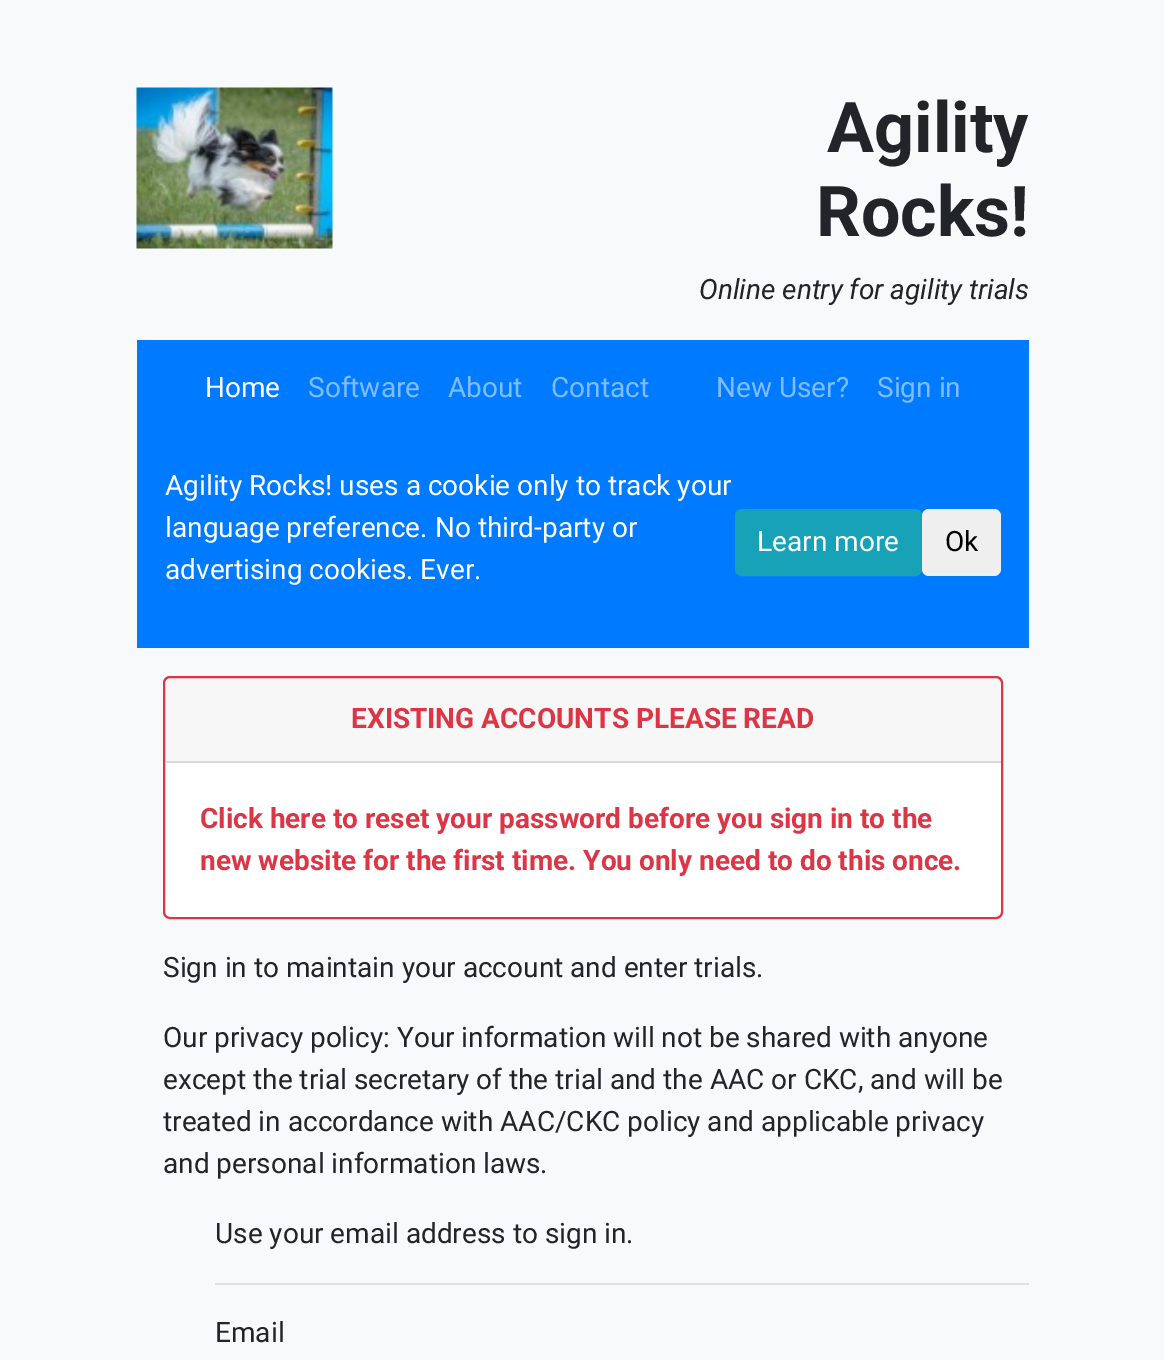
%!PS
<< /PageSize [1164 1360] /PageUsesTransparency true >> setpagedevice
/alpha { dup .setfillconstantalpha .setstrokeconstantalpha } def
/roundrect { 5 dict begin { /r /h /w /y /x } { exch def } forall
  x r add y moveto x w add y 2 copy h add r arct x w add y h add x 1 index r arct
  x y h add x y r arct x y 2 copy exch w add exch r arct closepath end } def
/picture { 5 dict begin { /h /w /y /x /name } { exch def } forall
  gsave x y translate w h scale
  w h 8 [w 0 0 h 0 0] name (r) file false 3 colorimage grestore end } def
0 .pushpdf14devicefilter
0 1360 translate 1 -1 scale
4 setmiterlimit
0.973 0.976 0.98 setrgbcolor
0 0 1164 1360 rectfill
(img1.rgb) 136 87 197 162 picture
/Roboto-Bold [70 0 0 -70 0 0] selectfont
0.129 0.145 0.161 setrgbcolor
827 152 moveto (Agility) show
816 236 moveto (Rocks!) show
/Roboto-Italic [28 0 0 -28 0 0] selectfont
699 299 moveto (Online entry for agility trials) show
0 0.482 1 setrgbcolor
137 340 892 308 rectfill
/Roboto-Regular [28 0 0 -28 0 0] selectfont
1 setgray
205 397 moveto (Home) show
0.502 0.741 1 setrgbcolor
308 397 moveto (Software) show
448 397 moveto (About) show
551 397 moveto (Contact) show
716 397 moveto (New User?) show
877 397 moveto (Sign in) show
1 setgray
165 495 moveto (Agility Rocks! uses a cookie only to track your) show
165 537 moveto (language preference. No third-party or) show
165 579 moveto (advertising cookies. Ever.) show
0.09 0.635 0.722 setrgbcolor
736 510 185 65 6 roundrect gsave fill grestore
2 setlinewidth
stroke
1 setgray
757 551 moveto (Learn more) show
0.937 setgray
922 509 79 67 7 roundrect fill
0 setgray
945 551 moveto (Ok) show
1 setgray
164 677 838 241 6 roundrect gsave fill grestore
0.863 0.208 0.271 setrgbcolor
stroke
0.03 alpha
0 setgray
165 677 836 84 rectfill
1 alpha
0.847 setgray
165 761 836 2 rectfill
/Roboto-Bold [28 0 0 -28 0 0] selectfont
0.863 0.208 0.271 setrgbcolor
351 728 moveto (EXISTING ACCOUNTS PLEASE READ) show
200 828 moveto (Click here to reset your password before you sign in to the) show
200 870 moveto (new website for the first time. You only need to do this once.) show
/Roboto-Regular [28 0 0 -28 0 0] selectfont
0.129 0.145 0.161 setrgbcolor
163 977 moveto (Sign in to maintain your account and enter trials.) show
163 1047 moveto (Our privacy policy: Your information will not be shared with anyone) show
163 1089 moveto (except the trial secretary of the trial and the AAC or CKC, and will be) show
163 1131 moveto (treated in accordance with AAC/CKC policy and applicable privacy) show
163 1173 moveto (and personal information laws.) show
215 1243 moveto (Use your email address to sign in.) show
0.875 0.878 0.882 setrgbcolor
215 1283 814 2 rectfill
0.129 0.145 0.161 setrgbcolor
215 1342 moveto (Email) show
.poppdf14devicefilter showpage
